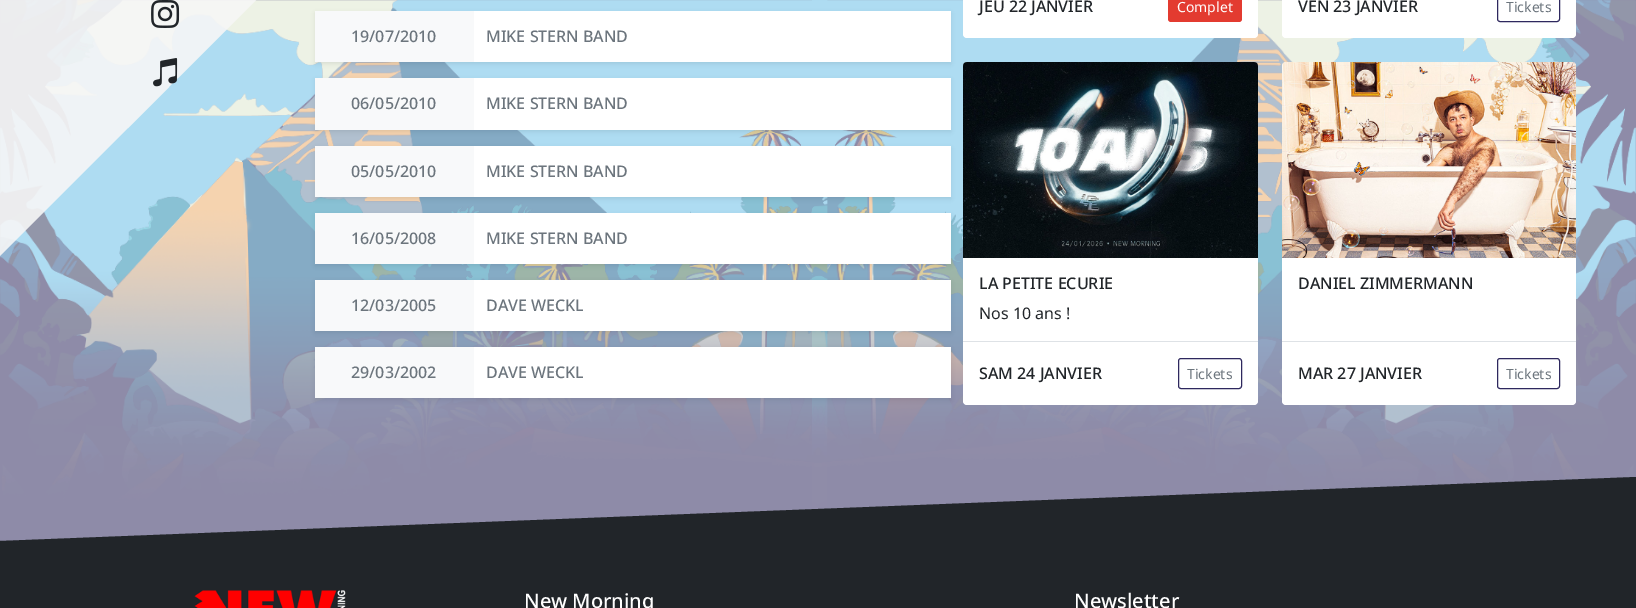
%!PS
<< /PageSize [1636 608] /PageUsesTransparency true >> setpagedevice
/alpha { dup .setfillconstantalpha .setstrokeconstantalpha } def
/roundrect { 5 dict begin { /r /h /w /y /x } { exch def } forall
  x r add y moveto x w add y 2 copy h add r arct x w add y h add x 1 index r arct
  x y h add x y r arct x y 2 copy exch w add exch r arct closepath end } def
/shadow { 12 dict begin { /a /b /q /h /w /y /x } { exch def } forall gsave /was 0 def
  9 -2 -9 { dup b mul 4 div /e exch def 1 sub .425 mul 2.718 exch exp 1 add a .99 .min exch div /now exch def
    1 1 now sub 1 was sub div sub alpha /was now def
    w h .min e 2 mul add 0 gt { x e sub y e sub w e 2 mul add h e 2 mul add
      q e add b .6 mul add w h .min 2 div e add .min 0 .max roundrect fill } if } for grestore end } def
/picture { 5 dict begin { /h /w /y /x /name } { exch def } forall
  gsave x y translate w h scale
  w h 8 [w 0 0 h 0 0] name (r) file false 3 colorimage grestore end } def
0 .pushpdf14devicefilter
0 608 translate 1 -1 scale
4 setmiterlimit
1 setgray
0 0 1636 608 rectfill
(img1.rgb) 0 0 1636 541 picture
0.9 alpha
0.965 setgray
newpath 0 -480 moveto 736 -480 lineto 0 256 lineto closepath fill
1 alpha
(img2.rgb) 151 0 29 28 picture
(img3.rgb) 153 58 25 29 picture
0 setgray
315 13 636 51 0 2 0.07 shadow
1 setgray
474 11 477 51 rectfill
0.973 0.976 0.98 setrgbcolor
315 11 159 51 rectfill
/NotoSans-Medium [16 0 0 -16 0 0] selectfont
0.424 0.459 0.49 setrgbcolor
351 42 moveto (19/07/2010) show
486 42 moveto (MIKE STERN BAND) show
0 setgray
315 80 636 52 0 2 0.07 shadow
1 setgray
474 78 477 52 rectfill
0.973 0.976 0.98 setrgbcolor
315 78 159 52 rectfill
0.424 0.459 0.49 setrgbcolor
351 109 moveto (06/05/2010) show
486 109 moveto (MIKE STERN BAND) show
0 setgray
315 148 636 51 0 2 0.07 shadow
1 setgray
474 146 477 51 rectfill
0.973 0.976 0.98 setrgbcolor
315 146 159 51 rectfill
0.424 0.459 0.49 setrgbcolor
351 177 moveto (05/05/2010) show
486 177 moveto (MIKE STERN BAND) show
0 setgray
315 215 636 51 0 2 0.07 shadow
1 setgray
474 213 477 51 rectfill
0.973 0.976 0.98 setrgbcolor
315 213 159 51 rectfill
0.424 0.459 0.49 setrgbcolor
351 244 moveto (16/05/2008) show
486 244 moveto (MIKE STERN BAND) show
0 setgray
315 282 636 51 0 2 0.07 shadow
1 setgray
474 280 477 51 rectfill
0.973 0.976 0.98 setrgbcolor
315 280 159 51 rectfill
0.424 0.459 0.49 setrgbcolor
351 311 moveto (12/03/2005) show
486 311 moveto (DAVE WECKL) show
0 setgray
315 349 636 51 0 2 0.07 shadow
1 setgray
474 347 477 51 rectfill
0.973 0.976 0.98 setrgbcolor
315 347 159 51 rectfill
0.424 0.459 0.49 setrgbcolor
351 378 moveto (29/03/2002) show
486 378 moveto (DAVE WECKL) show
1 setgray
963 -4 295 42 4 roundrect fill
0.129 0.145 0.161 setrgbcolor
979 12 moveto (JEU 22 JANVIER) show
0.89 0.231 0.188 setrgbcolor
1168 -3 74 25 3 roundrect fill
/NotoSans-Regular [14 0 0 -14 0 0] selectfont
1 setgray
1177 12 moveto (Complet) show
1282 -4 294 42 4 roundrect fill
/NotoSans-Medium [16 0 0 -16 0 0] selectfont
0.129 0.145 0.161 setrgbcolor
1298 12 moveto (VEN 23 JANVIER) show
0.18 0.157 0.369 setrgbcolor
1497.5 -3.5 62 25 2.5 roundrect stroke
/NotoSans-Regular [14 0 0 -14 0 0] selectfont
0.424 0.459 0.49 setrgbcolor
1506 12 moveto (Tickets) show
1 setgray
963 62 295 343 4 roundrect fill
(img4.rgb) 963 62 295 196 picture
/NotoSans-Medium [16 0 0 -16 0 0] selectfont
0.129 0.145 0.161 setrgbcolor
979 289 moveto (LA PETITE ECURIE) show
/NotoSans-Regular [16 0 0 -16 0 0] selectfont
979 319 moveto (Nos 10 ans !) show
0.871 0.886 0.902 setrgbcolor
963 341 295 1 rectfill
/NotoSans-Medium [16 0 0 -16 0 0] selectfont
0.129 0.145 0.161 setrgbcolor
979 379 moveto (SAM 24 JANVIER) show
0.18 0.157 0.369 setrgbcolor
1178.5 358.5 63 30 2.5 roundrect stroke
/NotoSans-Regular [14 0 0 -14 0 0] selectfont
0.424 0.459 0.49 setrgbcolor
1187 379 moveto (Tickets) show
1 setgray
1282 62 294 343 4 roundrect fill
(img5.rgb) 1282 62 294 196 picture
/NotoSans-Medium [16 0 0 -16 0 0] selectfont
0.129 0.145 0.161 setrgbcolor
1298 289 moveto (DANIEL ZIMMERMANN) show
0.871 0.886 0.902 setrgbcolor
1282 341 294 1 rectfill
0.129 0.145 0.161 setrgbcolor
1298 379 moveto (MAR 27 JANVIER) show
0.18 0.157 0.369 setrgbcolor
1497.5 358.5 62 30 2.5 roundrect stroke
/NotoSans-Regular [14 0 0 -14 0 0] selectfont
0.424 0.459 0.49 setrgbcolor
1506 379 moveto (Tickets) show
0.129 0.145 0.161 setrgbcolor
newpath 1636 541 moveto 1636 477 lineto 0 541 lineto fill
0 541 1636 67 rectfill
(img6.rgb) 194 590 152 18 picture
/NotoSans-Medium [20 0 0 -20 0 0] selectfont
1 setgray
524 608 moveto (New Morning) show
1074 608 moveto (Newsletter) show
.poppdf14devicefilter showpage
